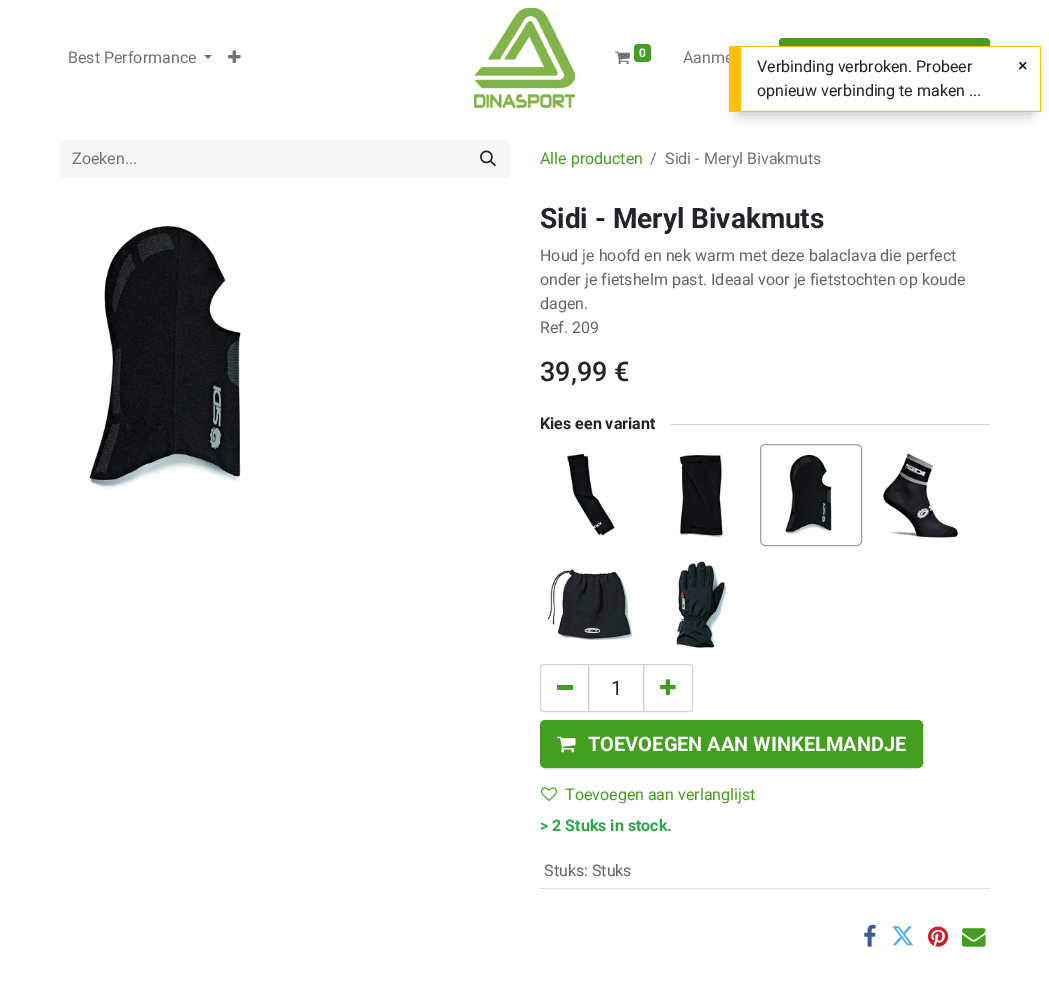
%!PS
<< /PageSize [1049 993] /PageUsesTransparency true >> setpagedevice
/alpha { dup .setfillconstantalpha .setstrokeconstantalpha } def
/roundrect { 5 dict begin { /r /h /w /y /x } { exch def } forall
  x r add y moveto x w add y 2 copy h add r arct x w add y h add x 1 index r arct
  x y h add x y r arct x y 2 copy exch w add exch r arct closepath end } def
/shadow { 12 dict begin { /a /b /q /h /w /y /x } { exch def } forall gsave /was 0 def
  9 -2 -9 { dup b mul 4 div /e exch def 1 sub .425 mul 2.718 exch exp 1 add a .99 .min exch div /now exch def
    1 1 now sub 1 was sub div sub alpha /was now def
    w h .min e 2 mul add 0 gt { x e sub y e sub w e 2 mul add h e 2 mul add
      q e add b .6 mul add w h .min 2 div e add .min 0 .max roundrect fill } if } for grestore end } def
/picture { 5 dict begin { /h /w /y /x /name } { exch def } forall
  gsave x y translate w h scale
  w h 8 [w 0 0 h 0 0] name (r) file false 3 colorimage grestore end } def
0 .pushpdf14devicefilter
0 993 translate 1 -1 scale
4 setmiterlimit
1 setgray
0 0 1049 993 rectfill
/Roboto-Regular [16 0 0 -16 0 0] selectfont
0.451 setgray
68 63 moveto (Best Performance) show
newpath 204 55 moveto 212 55 lineto 208 59 lineto closepath fill
(img1.rgb) 228 50 13 13 picture
(img2.rgb) 474 8 101 100 picture
(img3.rgb) 615 51 15 14 picture
0.267 0.62 0.122 setrgbcolor
634 44 17 18 4 roundrect fill
/Roboto-Bold [12 0 0 -12 0 0] selectfont
1 setgray
639 57 moveto (0) show
/Roboto-Regular [16 0 0 -16 0 0] selectfont
0.451 setgray
683 63 moveto (Aanme) show
0.267 0.62 0.122 setrgbcolor
779.5 38.5 210 37 3.5 roundrect gsave fill grestore
stroke
0.969 setgray
newpath 64 140 moveto 468 140 lineto 468 178 lineto 64 178 lineto 62 178 60 176 60 174 curveto 60 144 lineto 60 142 62 140 64 140 curveto closepath fill
0.424 0.459 0.49 setrgbcolor
72 164 moveto (Zoeken...) show
0.969 setgray
newpath 467 140 moveto 506 140 lineto 508 140 510 142 510 144 curveto 510 174 lineto 510 176 508 178 506 178 curveto 467 178 lineto closepath fill
(img4.rgb) 480 150 16 17 picture
0.267 0.62 0.122 setrgbcolor
540 164 moveto (Alle producten) show
0.424 0.459 0.49 setrgbcolor
650 164 moveto (/) show
665 164 moveto (Sidi - Meryl Bivakmuts) show
(img5.rgb) 88 226 153 263 picture
/Roboto-Bold [28 0 0 -28 0 0] selectfont
0.129 0.145 0.161 setrgbcolor
540 228 moveto (Sidi - Meryl Bivakmuts) show
/Roboto-Regular [16 0 0 -16 0 0] selectfont
0.392 0.4 0.412 setrgbcolor
540 261 moveto (Houd je hoofd en nek warm met deze balaclava die perfect) show
540 285 moveto (onder je fietshelm past. Ideaal voor je fietstochten op koude) show
540 309 moveto (dagen.) show
540 333 moveto (Ref. 209) show
/Roboto-Medium [27 0 0 -27 0 0] selectfont
0.129 0.145 0.161 setrgbcolor
540 381 moveto (39,99 €) show
/Roboto-Bold [16 0 0 -16 0 0] selectfont
540 429 moveto (Kies een variant) show
0.808 0.831 0.855 setrgbcolor
671 424 319 1 rectfill
(img6.rgb) 567 452 48 85 picture
(img7.rgb) 678 454 45 84 picture
0.616 0.631 0.667 setrgbcolor
760.5 444.5 101 101 4.5 roundrect stroke
(img8.rgb) 785 454 48 80 picture
(img9.rgb) 883 452 75 88 picture
(img10.rgb) 547 569 86 72 picture
(img11.rgb) 673 561 54 88 picture
0.808 0.831 0.855 setrgbcolor
588.5 664.5 55 47 rectstroke
newpath 544 664.5 moveto 588.5 664.5 lineto 588.5 711.5 lineto 544 711.5 lineto 542 711.5 540.5 710 540.5 708 curveto 540.5 668 lineto 540.5 666 542 664.5 544 664.5 curveto closepath stroke
0.267 0.62 0.122 setrgbcolor
557 685 16 5 rectfill
/Roboto-Regular [20 0 0 -20 0 0] selectfont
0.129 0.145 0.161 setrgbcolor
611 695 moveto (1) show
0.808 0.831 0.855 setrgbcolor
newpath 643.5 664.5 moveto 689 664.5 lineto 691 664.5 692.5 666 692.5 668 curveto 692.5 708 lineto 692.5 710 691 711.5 689 711.5 curveto 643.5 711.5 lineto closepath stroke
(img12.rgb) 660 679 16 16 picture
0.267 0.62 0.122 setrgbcolor
540.5 720.5 382 47 4.5 roundrect gsave fill grestore
stroke
(img13.rgb) 557 736 19 17 picture
/Roboto-Bold [20 0 0 -20 0 0] selectfont
1 setgray
588 751 moveto (TOEVOEGEN AAN WINKELMANDJE) show
(img14.rgb) 541 787 16 15 picture
/Roboto-Regular [16 0 0 -16 0 0] selectfont
0.267 0.62 0.122 setrgbcolor
565 800 moveto (Toevoegen aan verlanglijst) show
/Roboto-Bold [16 0 0 -16 0 0] selectfont
0.157 0.655 0.271 setrgbcolor
540 831 moveto (> 2 Stuks in stock.) show
0.871 0.886 0.902 setrgbcolor
539 888 451 1 rectfill
/Roboto-Regular [16 0 0 -16 0 0] selectfont
0.392 0.4 0.412 setrgbcolor
544 876 moveto (Stuks: Stuks) show
(img15.rgb) 864 924 12 23 picture
(img16.rgb) 892 926 22 20 picture
(img17.rgb) 928 926 21 21 picture
(img18.rgb) 962 928 24 19 picture
0 setgray
739 68 292 46 0 7 0.25 shadow
1 setgray
741 47 299 64 rectfill
1 0.757 0.027 setrgbcolor
741 46 300 1 rectfill
1040 46 1 66 rectfill
741 111 300 1 rectfill
729 46 12 66 rectfill
0.129 0.145 0.161 setrgbcolor
757 72 moveto (Verbinding verbroken. Probeer) show
757 96 moveto (opnieuw verbinding te maken ...) show
/LiberationSans-Bold [16 0 0 -16 0 0] selectfont
1018 71 moveto (×) show
.poppdf14devicefilter showpage
